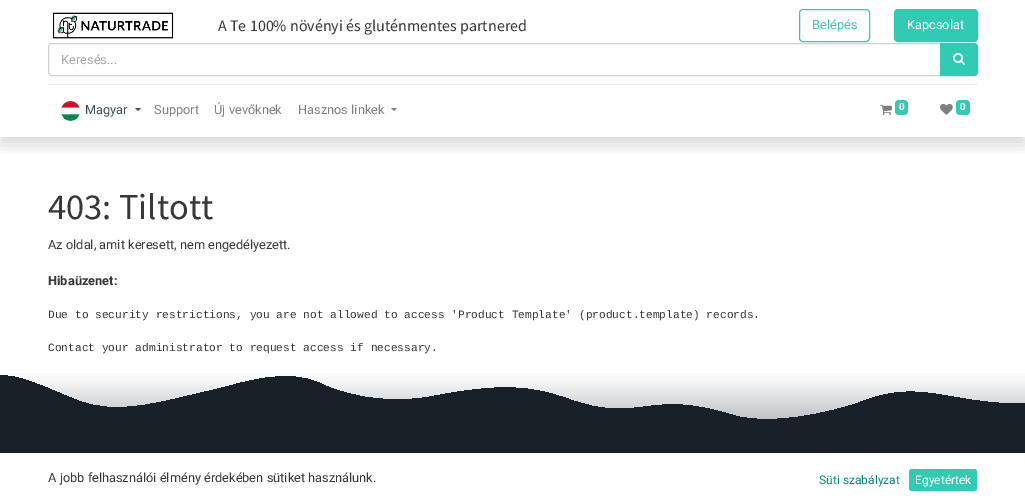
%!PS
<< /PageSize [1025 504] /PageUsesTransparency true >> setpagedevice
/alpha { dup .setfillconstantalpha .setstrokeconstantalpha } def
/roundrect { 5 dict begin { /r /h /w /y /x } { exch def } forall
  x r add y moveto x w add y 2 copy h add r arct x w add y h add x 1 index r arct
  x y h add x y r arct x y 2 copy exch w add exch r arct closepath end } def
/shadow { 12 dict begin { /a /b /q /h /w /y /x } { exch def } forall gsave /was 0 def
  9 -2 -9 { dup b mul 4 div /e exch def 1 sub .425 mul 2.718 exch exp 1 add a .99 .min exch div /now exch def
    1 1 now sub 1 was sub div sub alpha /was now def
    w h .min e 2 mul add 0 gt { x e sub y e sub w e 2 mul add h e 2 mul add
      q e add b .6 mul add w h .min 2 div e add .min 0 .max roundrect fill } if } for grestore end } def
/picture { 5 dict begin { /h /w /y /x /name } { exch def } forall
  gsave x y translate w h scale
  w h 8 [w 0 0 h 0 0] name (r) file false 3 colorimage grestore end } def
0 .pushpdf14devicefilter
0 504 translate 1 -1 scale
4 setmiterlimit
1 setgray
0 0 1025 504 rectfill
gsave
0 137 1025 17 rectclip
0 setgray
0 8 1025 137 0 8 0.15 shadow
grestore
(img1.rgb) 52 12 122 27 picture
/SourceSansPro-Regular [16 0 0 -16 0 0] selectfont
0.22 setgray
218 31 moveto (A Te 100% növényi és gluténmentes partnered) show
0.188 0.796 0.698 setrgbcolor
799.5 9.5 70 32 3.5 roundrect stroke
/Heebo-Regular [12.8 0 0 -12.8 0 0] selectfont
812 29 moveto (Belépés) show
894.5 9.5 83 32 3.5 roundrect gsave fill grestore
stroke
1 setgray
907 29 moveto (Kapcsolat) show
0.82 setgray
newpath 52 43.5 moveto 940.5 43.5 lineto 940.5 75.5 lineto 52 75.5 lineto 50 75.5 48.5 74 48.5 72 curveto 48.5 47 lineto 48.5 45 50 43.5 52 43.5 curveto closepath stroke
0.655 setgray
61 64 moveto (Keresés...) show
0.188 0.796 0.698 setrgbcolor
newpath 940.5 43.5 moveto 974 43.5 lineto 976 43.5 977.5 45 977.5 47 curveto 977.5 72 lineto 977.5 74 976 75.5 974 75.5 curveto 940.5 75.5 lineto closepath gsave fill grestore
stroke
(img2.rgb) 953 53 12 12 picture
0.933 setgray
48 84 930 1 rectfill
(img3.rgb) 61 101 19 20 picture
0.235 0.306 0.369 setrgbcolor
85 114 moveto (Magyar) show
newpath 135 108 moveto 141 108 lineto 138 111 lineto closepath fill
0.502 setgray
154 114 moveto (Support) show
214 114 moveto (Új vevőknek) show
298 114 moveto (Hasznos linkek) show
newpath 391 108 moveto 397 108 lineto 394 111 lineto closepath fill
(img4.rgb) 880 104 12 11 picture
0.188 0.796 0.698 setrgbcolor
895 100 13 15 4 roundrect fill
/Heebo-Bold [10 0 0 -10 0 0] selectfont
1 setgray
899 110 moveto (0) show
(img5.rgb) 940 104 13 11 picture
0.188 0.796 0.698 setrgbcolor
956 100 14 15 4 roundrect fill
1 setgray
960 110 moveto (0) show
/SourceSansPro-Regular [36.5 0 0 -36.5 0 0] selectfont
0.22 setgray
48 219 moveto (403: Tiltott) show
/Heebo-Regular [12.8 0 0 -12.8 0 0] selectfont
48 249 moveto (Az oldal, amit keresett, nem engedélyezett.) show
/Heebo-Bold [12.8 0 0 -12.8 0 0] selectfont
48 285 moveto (Hibaüzenet:) show
/LiberationMono-Regular [11.2 0 0 -11.2 0 0] selectfont
48 318 moveto (Due to security restrictions, you are not allowed to access 'Product Template' \(product.template\) records.) show
48 351 moveto (Contact your administrator to request access if necessary.) show
0.098 0.125 0.157 setrgbcolor
0 374 1025 79 rectfill
gsave newpath 1025 373 moveto 0 373 lineto 0 375 lineto 18 373 38 383 77 399 curveto 119 416 162 400 217 388 curveto 244 381 287 367 320 382 curveto 360 401 405 401 434 395 curveto 500 382 533 385 569 398 curveto 641 424 646 387 733 414 curveto 775 427 844 407 860 401 curveto 921 377 947 403 1025 403 curveto closepath clip newpath
<< /ShadingType 2 /ColorSpace /DeviceRGB /Coords [513 379 513 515] /Extend [true true] /Function << /FunctionType 2 /Domain [0 1] /C0 [0.973 0.976 0.98] /C1 [0.22 0.243 0.271] /N 1 >> >> shfill grestore
/Heebo-Regular [12.8 0 0 -12.8 0 0] selectfont
0.22 setgray
48 482 moveto (A jobb felhasználói élmény érdekében sütiket használunk.) show
/Heebo-Regular [12 0 0 -12 0 0] selectfont
0.016 0.545 0.463 setrgbcolor
819 484 moveto (Süti szabályzat) show
0.188 0.796 0.698 setrgbcolor
909.5 469.5 67 21 2.5 roundrect gsave fill grestore
stroke
1 setgray
915 484 moveto (Egyetértek) show
.poppdf14devicefilter showpage
